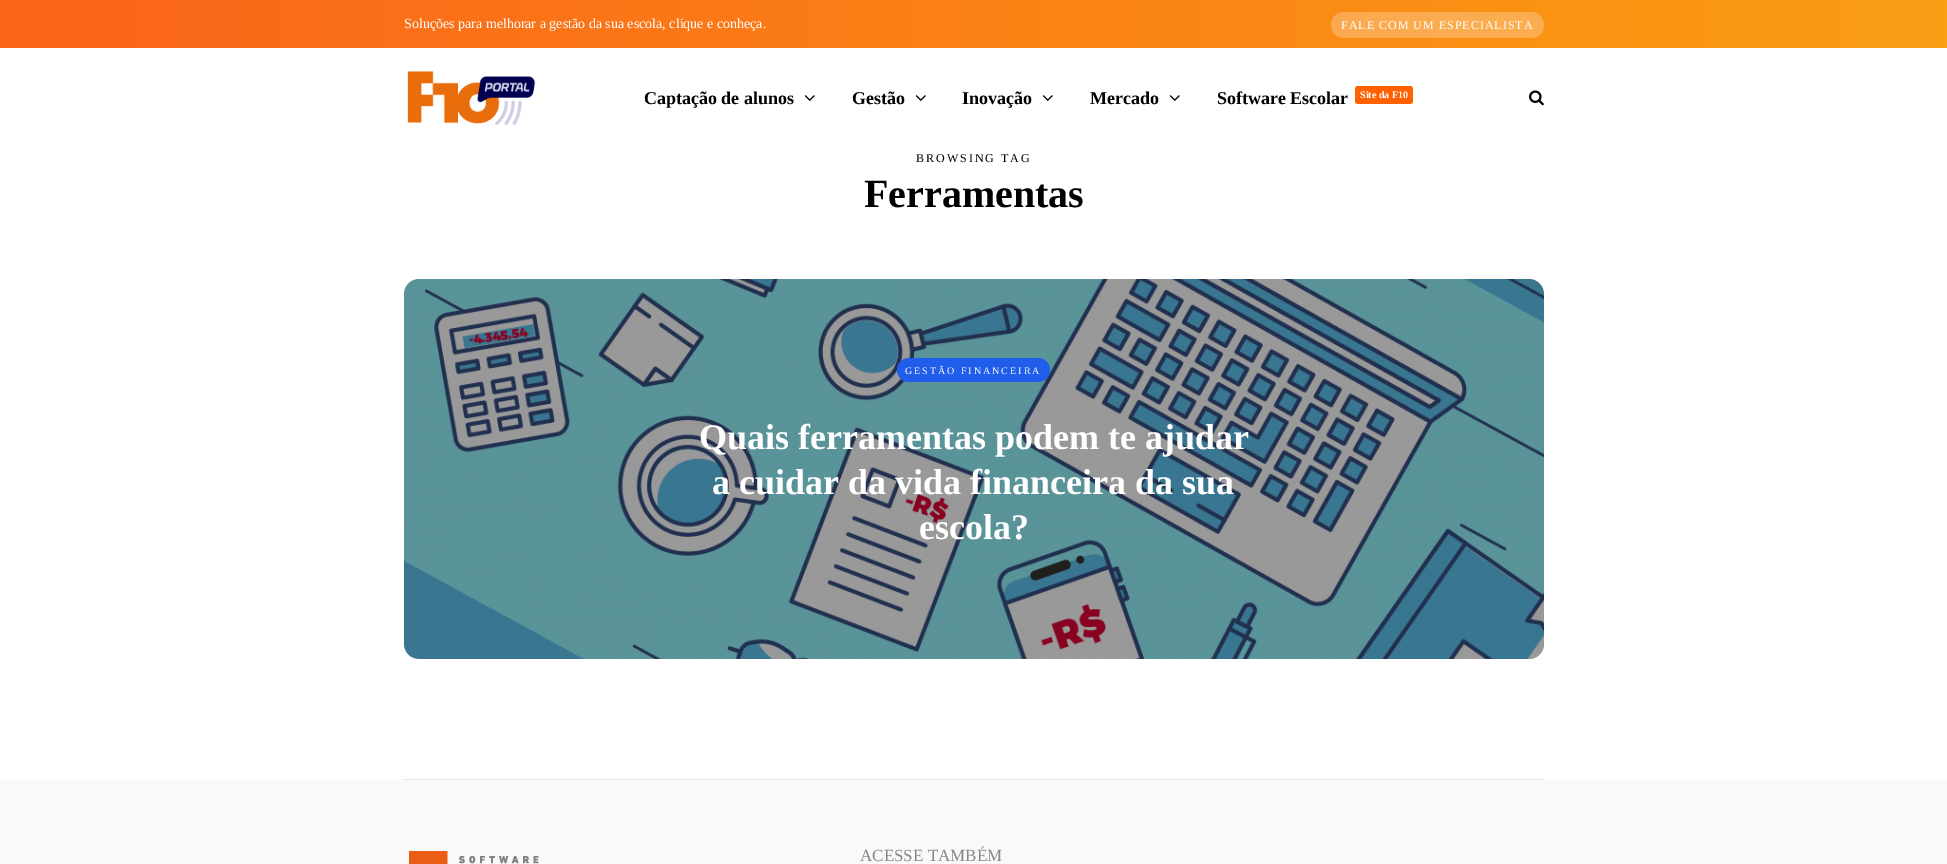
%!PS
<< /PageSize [1947 864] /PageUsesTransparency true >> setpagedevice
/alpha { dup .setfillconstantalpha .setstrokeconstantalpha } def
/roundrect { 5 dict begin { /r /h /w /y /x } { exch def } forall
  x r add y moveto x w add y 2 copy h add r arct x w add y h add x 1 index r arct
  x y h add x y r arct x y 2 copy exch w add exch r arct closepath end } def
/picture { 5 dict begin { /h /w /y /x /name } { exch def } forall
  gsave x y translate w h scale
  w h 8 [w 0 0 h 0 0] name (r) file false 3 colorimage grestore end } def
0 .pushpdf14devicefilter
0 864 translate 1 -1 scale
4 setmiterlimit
1 setgray
0 0 1947 864 rectfill
gsave newpath 0 0 moveto 1947 0 lineto 1947 48 lineto 0 48 lineto closepath clip newpath
<< /ShadingType 2 /ColorSpace /DeviceRGB /Coords [0 24 1947 24] /Extend [true true] /Function << /FunctionType 2 /Domain [0 1] /C0 [0.98 0.392 0.098] /C1 [0.98 0.62 0.078] /N 1 >> >> shfill grestore
/LiberationSerif-Regular [14 0 0 -14 0 0] selectfont
404 28 moveto (Soluções para melhorar a gestão da sua escola, clique e conheça.) show
0.25 alpha
1331 12 213 26 13 roundrect fill
/LiberationSerif-Regular [12 0 0 -12 0 0] selectfont
1 alpha
1341 29 moveto 1 0 (FALE COM UM ESPECIALISTA) ashow
(img1.rgb) 407 71 129 55 picture
/LiberationSerif-Bold [18 0 0 -18 0 0] selectfont
0 setgray
644 104 moveto (Captação de alunos) show
(img2.rgb) 804 95 11 6 picture
852 104 moveto (Gestão) show
(img2.rgb) 915 95 11 6 picture
962 104 moveto (Inovação) show
(img2.rgb) 1042 95 11 6 picture
1090 104 moveto (Mercado) show
(img2.rgb) 1169 95 11 6 picture
1217 104 moveto (Software Escolar) show
1 0.38 0 setrgbcolor
1355 86 58 18 3 roundrect fill
/LiberationSerif-Bold [10 0 0 -10 0 0] selectfont
1 setgray
1360 98 moveto (Site da F10) show
(img3.rgb) 1529 90 15 16 picture
/LiberationSerif-Regular [12 0 0 -12 0 0] selectfont
0 setgray
916 162 moveto 2 0 (BROWSING TAG) ashow
/LiberationSerif-Bold [40 0 0 -40 0 0] selectfont
864 207 moveto (Ferramentas) show
0.937 0.941 0.957 setrgbcolor
404 279 1140 380 15 roundrect fill
(img4.rgb) 404 279 1140 380 picture
0.4 alpha
0 setgray
404 279 1140 380 15 roundrect fill
1 alpha
0.122 0.365 0.918 setrgbcolor
897 358 153 24 12 roundrect fill
/LiberationSerif-Regular [10 0 0 -10 0 0] selectfont
1 setgray
905 374 moveto 2 0 (GESTÃO FINANCEIRA) ashow
/LiberationSerif-Bold [36 0 0 -36 0 0] selectfont
699 449 moveto (Quais ferramentas podem te ajudar) show
712 494 moveto (a cuidar da vida financeira da sua) show
919 539 moveto (escola?) show
0.976 setgray
0 779 1947 85 rectfill
0.886 0.89 0.906 setrgbcolor
404 779 1140 1 rectfill
(img5.rgb) 409 851 130 13 picture
/LiberationSerif-Regular [17 0 0 -17 0 0] selectfont
0.525 setgray
860 861 moveto (ACESSE TAMBÉM) show
.poppdf14devicefilter showpage
